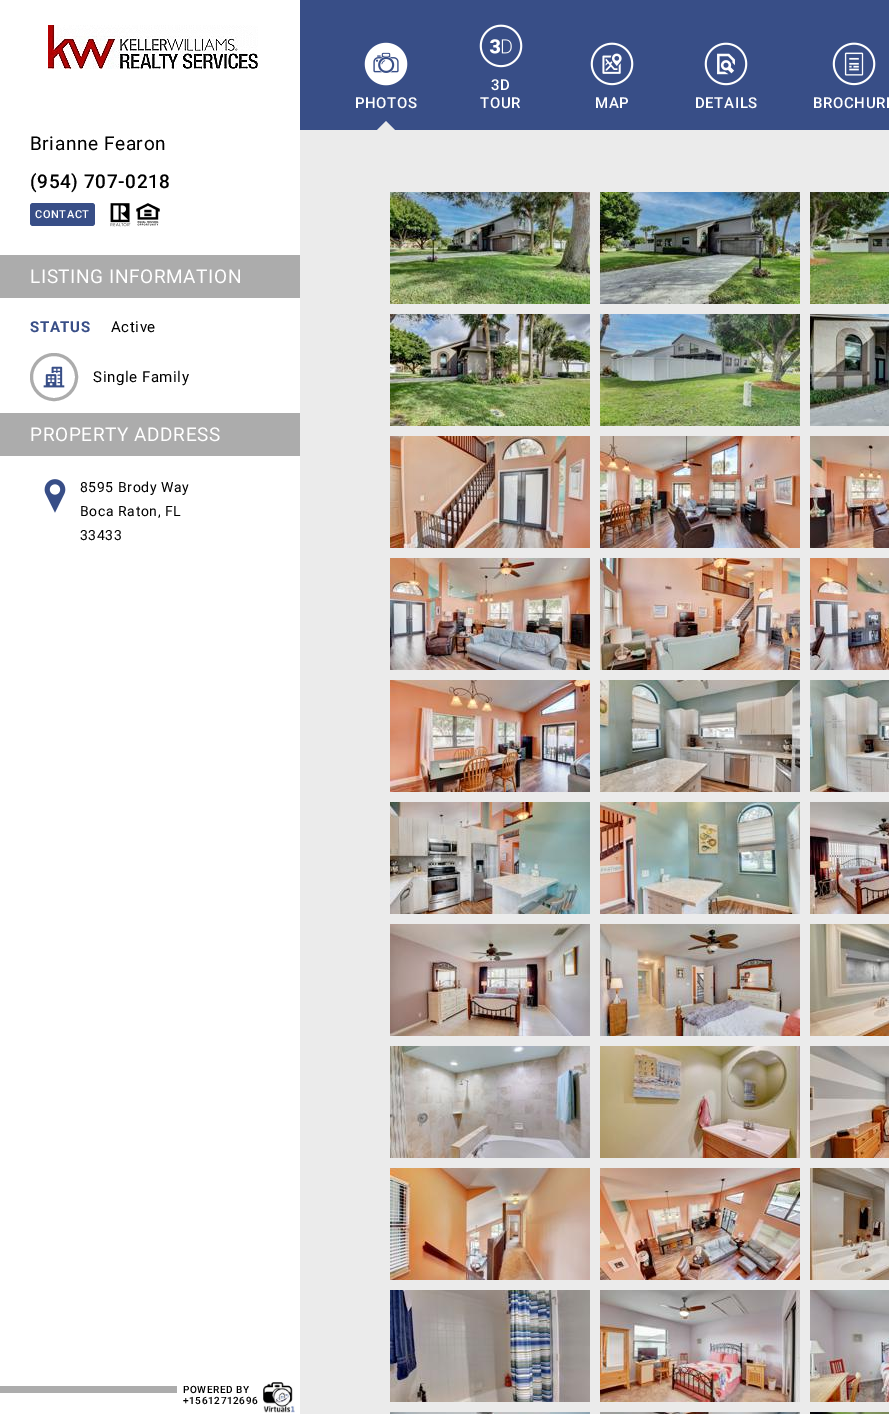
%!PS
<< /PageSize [889 1414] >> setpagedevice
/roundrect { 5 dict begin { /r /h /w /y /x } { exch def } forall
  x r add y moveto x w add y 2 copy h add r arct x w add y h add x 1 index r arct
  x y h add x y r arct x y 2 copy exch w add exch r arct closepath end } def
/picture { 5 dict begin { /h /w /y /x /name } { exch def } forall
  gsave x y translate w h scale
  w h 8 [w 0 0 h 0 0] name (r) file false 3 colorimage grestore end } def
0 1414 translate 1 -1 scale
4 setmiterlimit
0.922 setgray
0 0 889 1414 rectfill
0.22 0.306 0.529 setrgbcolor
300 0 589 130 rectfill
(img1.rgb) 364 42 44 44 picture
/Roboto-Medium [15 0 0 -15 0 0] selectfont
1 setgray
355 108 moveto 0.6 0 (PHOTOS) ashow
0.922 setgray
newpath 395 130 moveto 377 130 lineto 386 121 lineto closepath fill
(img2.rgb) 479 24 44 44 picture
1 setgray
491 90 moveto 0.6 0 (3D) ashow
480 108 moveto 0.6 0 (TOUR) ashow
(img3.rgb) 590 42 44 44 picture
595 108 moveto 0.6 0 (MAP) ashow
(img4.rgb) 704 42 44 44 picture
695 108 moveto 0.6 0 (DETAILS) ashow
(img5.rgb) 832 42 44 44 picture
813 108 moveto 0.6 0 (BROCHURE) ashow
(img6.rgb) 390 192 200 112 picture
(img7.rgb) 600 192 200 112 picture
(img8.rgb) 810 192 79 112 picture
(img9.rgb) 390 314 200 112 picture
(img10.rgb) 600 314 200 112 picture
(img11.rgb) 810 314 79 112 picture
(img12.rgb) 390 436 200 112 picture
(img13.rgb) 600 436 200 112 picture
(img14.rgb) 810 436 79 112 picture
(img15.rgb) 390 558 200 112 picture
(img16.rgb) 600 558 200 112 picture
(img17.rgb) 810 558 79 112 picture
(img18.rgb) 390 680 200 112 picture
(img19.rgb) 600 680 200 112 picture
(img20.rgb) 810 680 79 112 picture
(img21.rgb) 390 802 200 112 picture
(img22.rgb) 600 802 200 112 picture
(img23.rgb) 810 802 79 112 picture
(img24.rgb) 390 924 200 112 picture
(img25.rgb) 600 924 200 112 picture
(img26.rgb) 810 924 79 112 picture
(img27.rgb) 390 1046 200 112 picture
(img28.rgb) 600 1046 200 112 picture
(img29.rgb) 810 1046 79 112 picture
(img30.rgb) 390 1168 200 112 picture
(img31.rgb) 600 1168 200 112 picture
(img32.rgb) 810 1168 79 112 picture
(img33.rgb) 390 1290 200 112 picture
(img34.rgb) 600 1290 200 112 picture
(img35.rgb) 810 1290 79 112 picture
(img36.rgb) 390 1412 200 2 picture
(img37.rgb) 600 1412 200 2 picture
(img38.rgb) 810 1412 79 2 picture
0 0 300 1414 rectfill
(img39.rgb) 48 25 210 44 picture
/Roboto-Regular [19 0 0 -19 0 0] selectfont
0 setgray
30 150 moveto 0.6 0 (Brianne Fearon) ashow
/Roboto-Medium [19 0 0 -19 0 0] selectfont
30 188 moveto 0.6 0 (\(954\) 707-0218) ashow
0.22 0.306 0.529 setrgbcolor
30 203 65 23 3 roundrect fill
/Roboto-Medium [11 0 0 -11 0 0] selectfont
1 setgray
35 218 moveto 0.6 0 (CONTACT) ashow
(img40.rgb) 110 203 21 24 picture
(img41.rgb) 136 203 24 23 picture
0.675 setgray
0 255 300 43 rectfill
/Roboto-Regular [19 0 0 -19 0 0] selectfont
1 setgray
30 283 moveto 0.6 0 (LISTING INFORMATION) ashow
/Roboto-Bold [15 0 0 -15 0 0] selectfont
0.22 0.306 0.529 setrgbcolor
30 332 moveto 0.6 0 (STATUS) ashow
/Roboto-Regular [15 0 0 -15 0 0] selectfont
0 setgray
111 332 moveto 0.6 0 (Active) ashow
0.675 setgray
3 setlinewidth
newpath 54 377 22.5 0 360 arc closepath stroke
(img42.rgb) 43 366 22 22 picture
0 setgray
93 382 moveto 0.6 0 (Single Family) ashow
0.675 setgray
0 413 300 43 rectfill
/Roboto-Regular [19 0 0 -19 0 0] selectfont
1 setgray
30 441 moveto 0.6 0 (PROPERTY ADDRESS) ashow
(img43.rgb) 44 479 22 34 picture
/Roboto-Regular [14 0 0 -14 0 0] selectfont
0 setgray
80 492 moveto 0.6 0 (8595 Brody Way) ashow
80 516 moveto 0.6 0 (Boca Raton, FL) ashow
80 540 moveto 0.6 0 (33433) ashow
0.675 setgray
0 1386 177 7 rectfill
/Roboto-Medium [10 0 0 -10 0 0] selectfont
0 setgray
183 1393 moveto 0.6 0 (POWERED BY) ashow
183 1404 moveto 0.6 0 (+15612712696) ashow
(img44.rgb) 263 1382 32 31 picture
showpage
